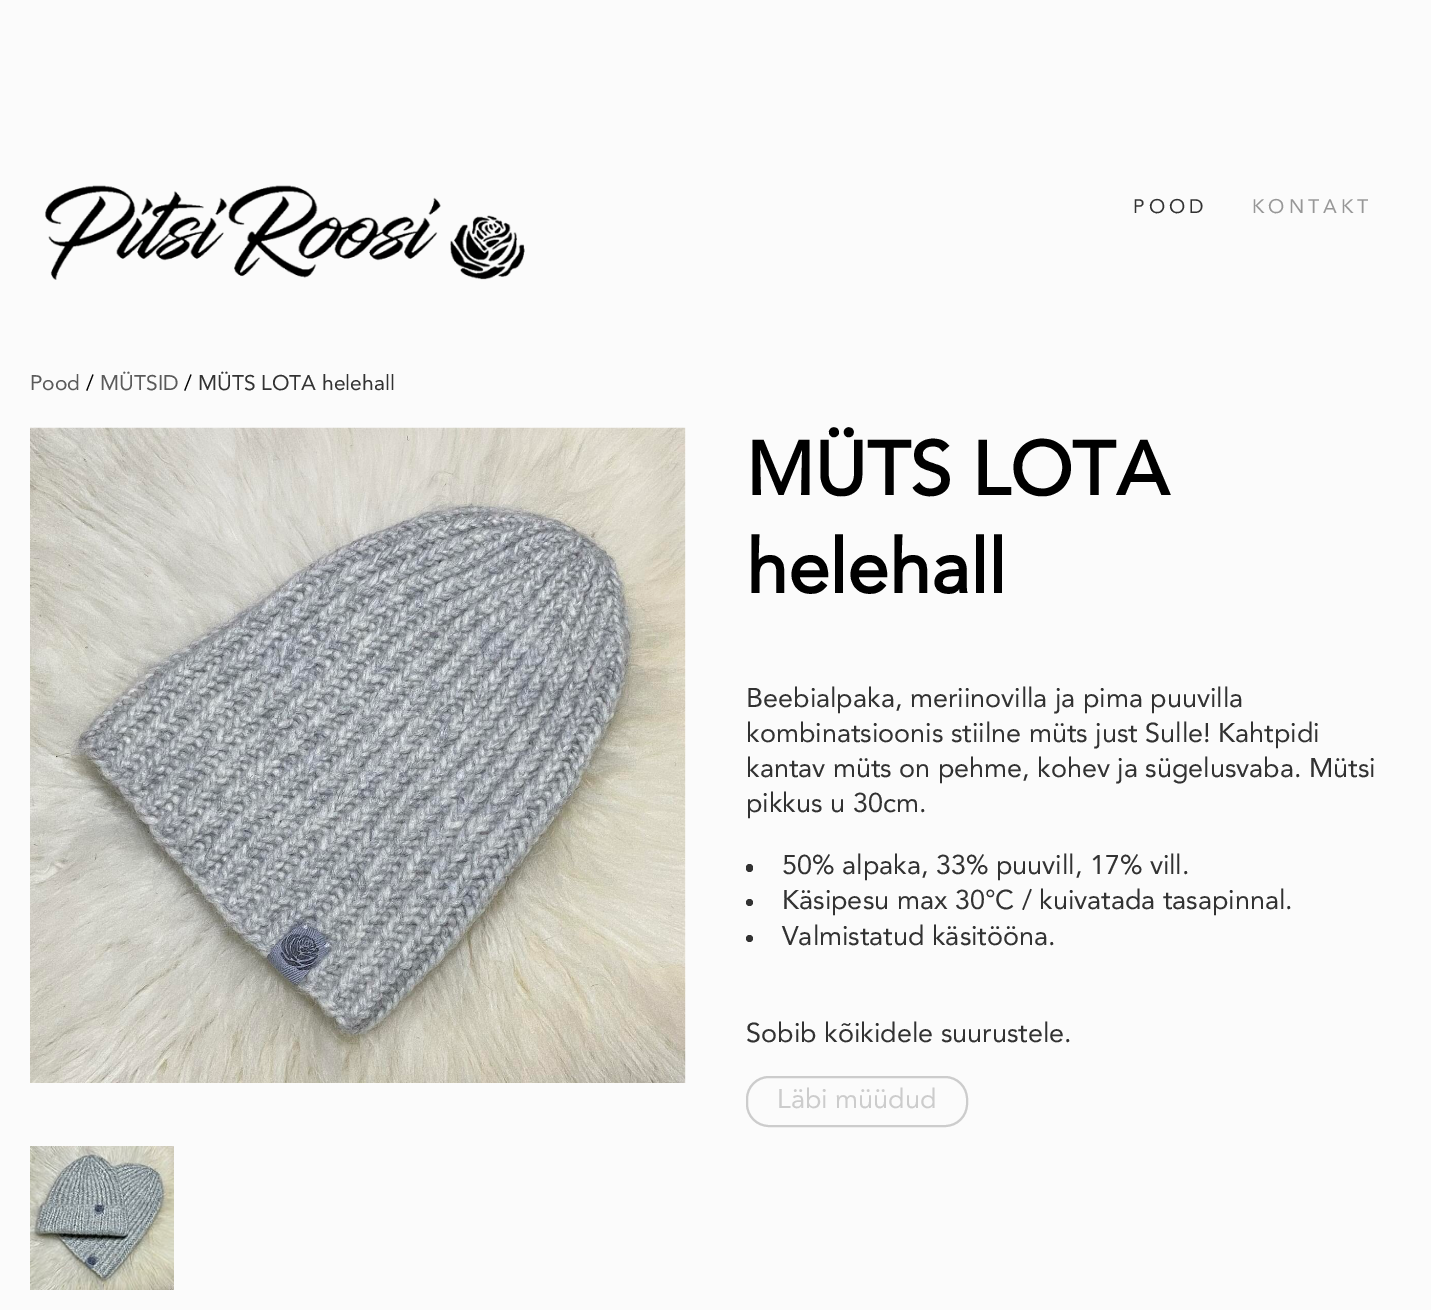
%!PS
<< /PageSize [1431 1310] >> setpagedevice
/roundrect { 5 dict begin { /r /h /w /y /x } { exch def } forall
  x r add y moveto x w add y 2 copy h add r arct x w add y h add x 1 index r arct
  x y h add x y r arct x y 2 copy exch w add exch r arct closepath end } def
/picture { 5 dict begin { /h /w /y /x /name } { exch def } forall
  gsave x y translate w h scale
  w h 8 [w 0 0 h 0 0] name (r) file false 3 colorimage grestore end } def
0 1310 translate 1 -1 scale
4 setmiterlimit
0.984 setgray
0 0 1431 1310 rectfill
(img1.rgb) 45 185 480 95 picture
/Avenir-Regular [19.5 0 0 -19.5 0 0] selectfont
0.196 setgray
1133 213 moveto 4 0 (POOD) ashow
0.592 setgray
1252 213 moveto 4 0 (KONTAKT) ashow
/Avenir-Regular [21 0 0 -21 0 0] selectfont
0.353 setgray
30 390 moveto (Pood) show
0 setgray
86 390 moveto (/) show
0.353 setgray
100 390 moveto (MÜTSID) show
0 setgray
184 390 moveto (/) show
0.196 setgray
198 390 moveto (MÜTS LOTA helehall) show
1 setgray
685 428 1 655 rectfill
(img2.rgb) 30 427 656 656 picture
(img3.rgb) 30 1146 144 144 picture
/Avenir-Bold [75 0 0 -75 0 0] selectfont
0 setgray
746 495 moveto (MÜTS LOTA) show
746 593 moveto (helehall) show
/Avenir-Regular [27 0 0 -27 0 0] selectfont
0.196 setgray
746 707 moveto (Beebialpaka, meriinovilla ja pima puuvilla) show
746 742 moveto (kombinatsioonis stiilne müts just Sulle! Kahtpidi) show
746 777 moveto (kantav müts on pehme, kohev ja sügelusvaba. Mütsi) show
746 812 moveto (pikkus u 30cm.) show
746 864 7 8 3.5 roundrect fill
782 874 moveto (50% alpaka, 33% puuvill, 17% vill.) show
newpath 749.5 902.5 3.5 0 360 arc closepath fill
782 909 moveto (Käsipesu max 30°C / kuivatada tasapinnal.) show
newpath 749.5 938.5 3.5 0 360 arc closepath fill
782 945 moveto (Valmistatud käsitööna.) show
746 1042 moveto (Sobib kõikidele suurustele.) show
0.8 setgray
2 setlinewidth
747 1077 220 49 22 roundrect stroke
777 1108 moveto (Läbi müüdud) show
showpage
